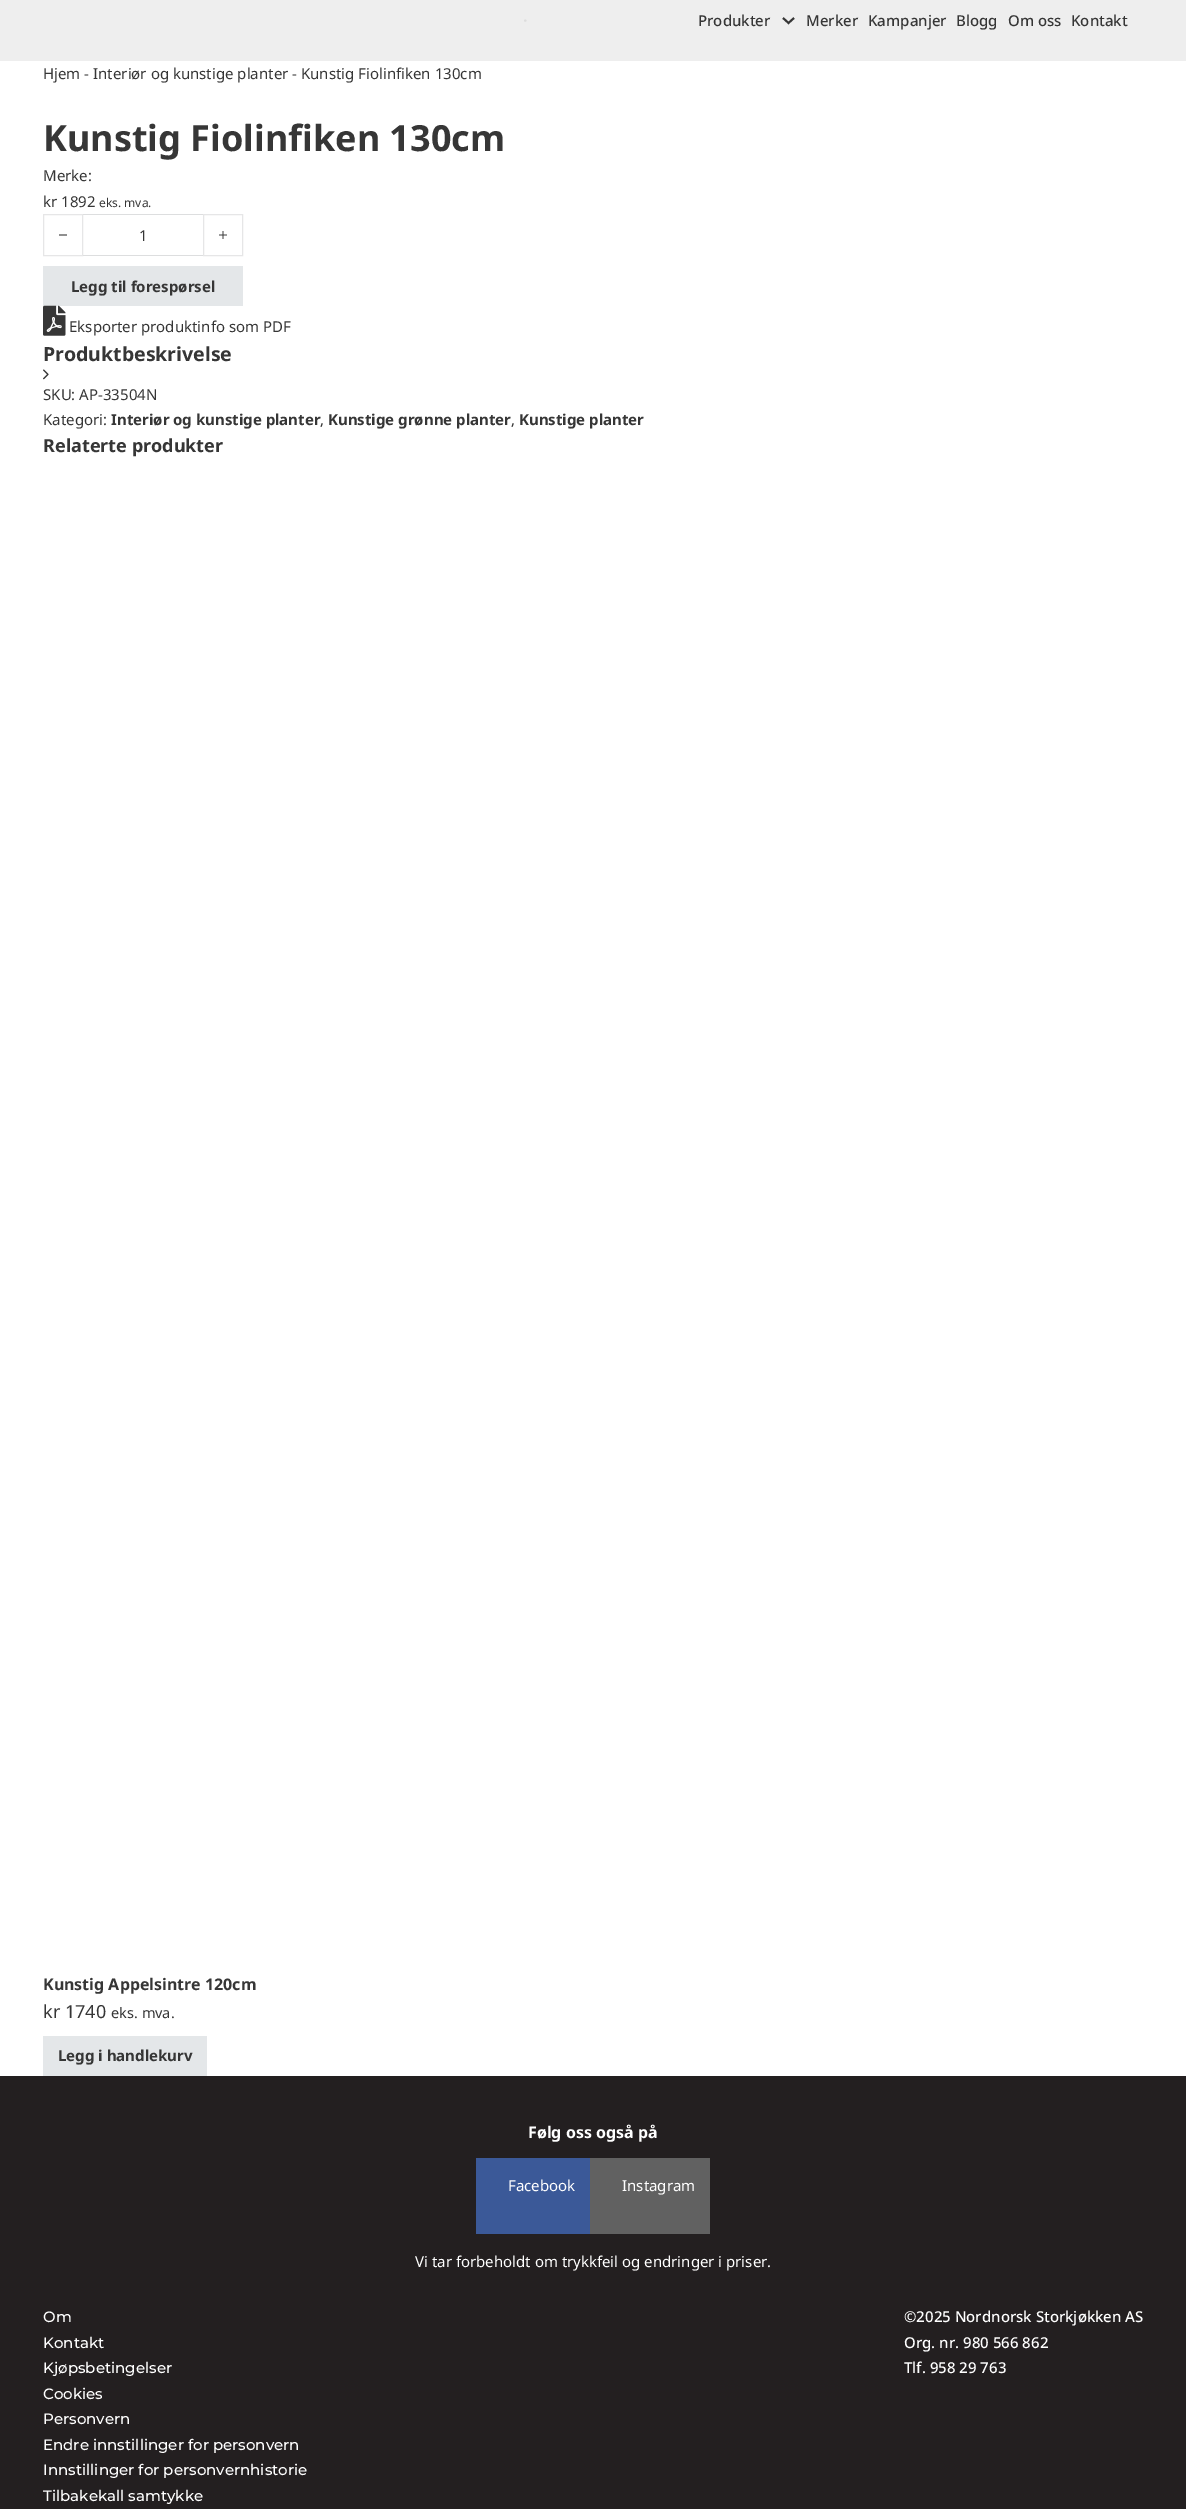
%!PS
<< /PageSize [1186 2509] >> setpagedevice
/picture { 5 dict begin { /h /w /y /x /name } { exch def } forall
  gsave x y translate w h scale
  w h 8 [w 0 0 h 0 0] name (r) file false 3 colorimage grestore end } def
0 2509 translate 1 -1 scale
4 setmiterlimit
1 setgray
0 0 1186 2509 rectfill
0.933 setgray
0 0 1186 61 rectfill
0.867 setgray
1.9 setlinewidth
1 setlinecap
newpath 525 20.5 moveto 525.5 20.5 lineto stroke
/NotoSans-Medium [15 0 0 -15 0 0] selectfont
0.212 setgray
698 26 moveto (Produkter) show
0 setlinecap
newpath 783 18 moveto 788.5 23 lineto 794 18 lineto stroke
806 26 moveto (Merker) show
868 26 moveto (Kampanjer) show
956 26 moveto (Blogg) show
1008 26 moveto (Om oss) show
1071 26 moveto (Kontakt) show
/NotoSans-Regular [15 0 0 -15 0 0] selectfont
43 79 moveto (Hjem - Interiør og kunstige planter - Kunstig Fiolinfiken 130cm) show
/NotoSans-Bold [36 0 0 -36 0 0] selectfont
43 151 moveto (Kunstig Fiolinfiken 130cm) show
/NotoSans-Regular [15 0 0 -15 0 0] selectfont
43 181 moveto (Merke:) show
43 207 moveto (kr 1892) show
/NotoSans-Regular [12 0 0 -12 0 0] selectfont
99 207 moveto (eks. mva.) show
0.902 0.902 0.906 setrgbcolor
1 setlinewidth
43.5 214.5 39 41 rectstroke
0.408 setgray
1.3 setlinewidth
newpath 59 235 moveto 67 235 lineto stroke
0.867 0.871 0.875 setrgbcolor
83 214 120 1 rectfill
83 255 120 1 rectfill
/NotoSans-Regular [15 0 0 -15 0 0] selectfont
0.212 setgray
139 241 moveto (1) show
0.902 0.902 0.906 setrgbcolor
1 setlinewidth
203.5 214.5 39 41 rectstroke
(img1.rgb) 219 231 8 8 picture
0.894 0.906 0.914 setrgbcolor
43 266 200 40 rectfill
/NotoSans-Bold [15 0 0 -15 0 0] selectfont
0.212 setgray
71 292 moveto (Legg til forespørsel) show
(img2.rgb) 43 305 23 31 picture
/NotoSans-Regular [15 0 0 -15 0 0] selectfont
69 332 moveto (Eksporter produktinfo som PDF) show
/NotoSans-Bold [19.5 0 0 -19.5 0 0] selectfont
43 361 moveto (Produktbeskrivelse) show
(img3.rgb) 43 369 6 11 picture
/NotoSans-Regular [15 0 0 -15 0 0] selectfont
43 400 moveto (SKU: AP-33504N) show
43 425 moveto (Kategori:) show
/NotoSans-Bold [15 0 0 -15 0 0] selectfont
111 425 moveto (Interiør og kunstige planter) show
/NotoSans-Regular [15 0 0 -15 0 0] selectfont
320 425 moveto (,) show
/NotoSans-Bold [15 0 0 -15 0 0] selectfont
328 425 moveto (Kunstige grønne planter) show
/NotoSans-Regular [15 0 0 -15 0 0] selectfont
511 425 moveto (,) show
/NotoSans-Bold [15 0 0 -15 0 0] selectfont
519 425 moveto (Kunstige planter) show
/NotoSans-Bold [18 0 0 -18 0 0] selectfont
43 452 moveto (Relaterte produkter) show
/NotoSans-Bold [16 0 0 -16 0 0] selectfont
43 1990 moveto (Kunstig Appelsintre 120cm) show
/NotoSans-Regular [18 0 0 -18 0 0] selectfont
43 2018 moveto (kr 1740) show
/NotoSans-Regular [14.5 0 0 -14.5 0 0] selectfont
111 2018 moveto (eks. mva.) show
0.894 0.906 0.914 setrgbcolor
43 2036 164 40 rectfill
/NotoSans-Bold [15 0 0 -15 0 0] selectfont
0.212 setgray
58 2061 moveto (Legg i handlekurv) show
0.137 0.122 0.125 setrgbcolor
0 2076 1186 433 rectfill
/NotoSans-Bold [16 0 0 -16 0 0] selectfont
1 setgray
528 2138 moveto (Følg oss også på) show
0.231 0.349 0.596 setrgbcolor
476 2158 114 76 rectfill
/NotoSans-Regular [15 0 0 -15 0 0] selectfont
1 setgray
508 2191 moveto (Facebook) show
0.38 setgray
590 2158 120 76 rectfill
1 setgray
622 2191 moveto (Instagram) show
415 2267 moveto (Vi tar forbeholdt om trykkfeil og endringer i priser.) show
/Montserrat-Medium [15 0 0 -15 0 0] selectfont
43 2322 moveto (Om) show
43 2348 moveto (Kontakt) show
43 2373 moveto (Kjøpsbetingelser) show
43 2399 moveto (Cookies) show
43 2424 moveto (Personvern) show
43 2450 moveto (Endre innstillinger for personvern) show
43 2475 moveto (Innstillinger for personvernhistorie) show
43 2501 moveto (Tilbakekall samtykke) show
/NotoSans-Medium [15 0 0 -15 0 0] selectfont
904 2322 moveto (©2025 Nordnorsk Storkjøkken AS) show
904 2348 moveto (Org. nr. 980 566 862) show
904 2373 moveto (Tlf. 958 29 763) show
showpage
